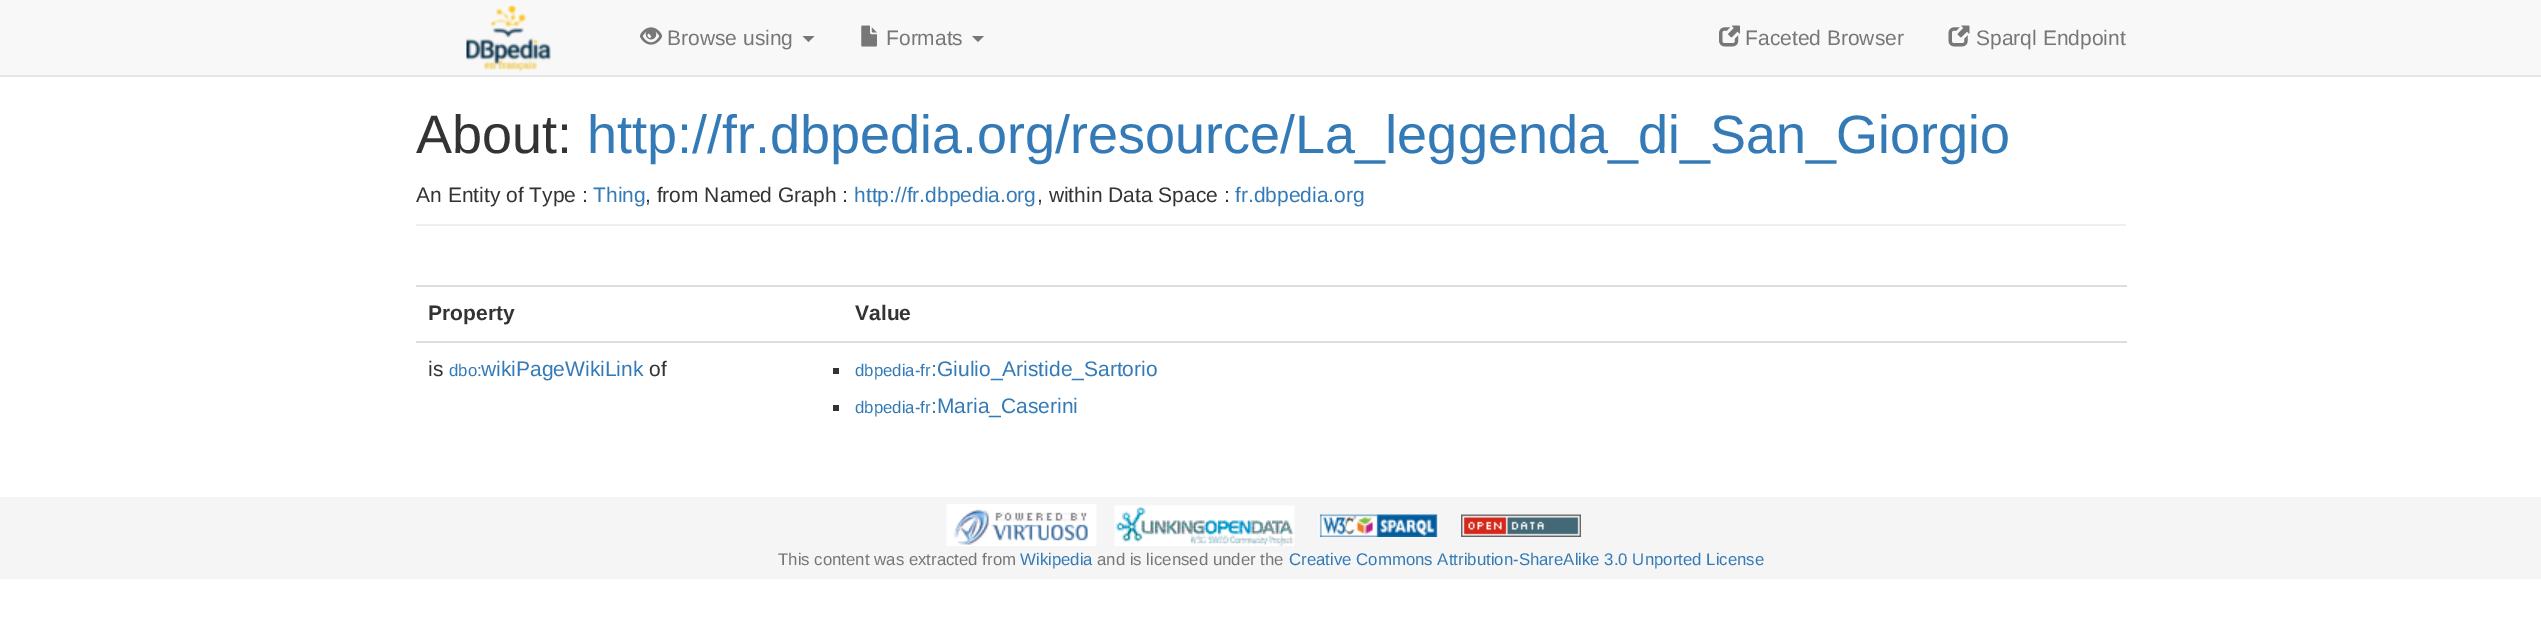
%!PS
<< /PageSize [2541 640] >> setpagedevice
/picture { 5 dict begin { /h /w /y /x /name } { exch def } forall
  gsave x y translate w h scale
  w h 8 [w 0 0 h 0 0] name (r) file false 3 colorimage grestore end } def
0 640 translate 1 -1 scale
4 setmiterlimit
1 setgray
0 0 2541 640 rectfill
0.973 setgray
0 0 2541 75 rectfill
0.906 setgray
0 75 2541 2 rectfill
(img1.rgb) 466 5 85 67 picture
(img2.rgb) 639 27 24 18 picture
/LiberationSans-Regular [21 0 0 -21 0 0] selectfont
0.467 setgray
667 45 moveto (Browse using) show
newpath 802.5 36 moveto 814.5 36 lineto 808.5 42 lineto closepath fill
(img3.rgb) 861 25 16 22 picture
886 45 moveto (Formats) show
newpath 972 36 moveto 984 36 lineto 978 42 lineto closepath fill
(img4.rgb) 1719 25 21 22 picture
1745 45 moveto (Faceted Browser) show
(img5.rgb) 1948 25 22 22 picture
1976 45 moveto (Sparql Endpoint) show
0.933 setgray
416 224 1710 2 rectfill
/LiberationSans-Regular [54 0 0 -54 0 0] selectfont
0.2 setgray
416 153 moveto (About:) show
0.2 0.478 0.718 setrgbcolor
587 153 moveto (http://fr.dbpedia.org/resource/La_leggenda_di_San_Giorgio) show
/LiberationSans-Regular [21 0 0 -21 0 0] selectfont
0.2 setgray
416 202 moveto (An Entity of Type :) show
0.2 0.478 0.718 setrgbcolor
593 202 moveto (Thing) show
0.2 setgray
645 202 moveto (, from Named Graph :) show
0.2 0.478 0.718 setrgbcolor
854 202 moveto (http://fr.dbpedia.org) show
0.2 setgray
1037 202 moveto (, within Data Space :) show
0.2 0.478 0.718 setrgbcolor
1235 202 moveto (fr.dbpedia.org) show
/LiberationSans-Bold [21 0 0 -21 0 0] selectfont
0.2 setgray
428 320 moveto (Property) show
0.867 setgray
416 285 1711 2 rectfill
0.2 setgray
855 320 moveto (Value) show
/LiberationSans-Regular [21 0 0 -21 0 0] selectfont
428 376 moveto (is) show
/LiberationSans-Regular [16.8 0 0 -16.8 0 0] selectfont
0.2 0.478 0.718 setrgbcolor
449 376 moveto (dbo:) show
/LiberationSans-Regular [21 0 0 -21 0 0] selectfont
481 376 moveto (wikiPageWikiLink) show
0.2 setgray
649 376 moveto (of) show
0.867 setgray
416 341 1711 2 rectfill
0.2 setgray
833 368 6 6 rectfill
/LiberationSans-Regular [16.8 0 0 -16.8 0 0] selectfont
0.2 0.478 0.718 setrgbcolor
855 376 moveto (dbpedia-fr) show
/LiberationSans-Regular [21 0 0 -21 0 0] selectfont
931 376 moveto (:Giulio_Aristide_Sartorio) show
0.2 setgray
833 405 6 6 rectfill
/LiberationSans-Regular [16.8 0 0 -16.8 0 0] selectfont
0.2 0.478 0.718 setrgbcolor
855 413 moveto (dbpedia-fr) show
/LiberationSans-Regular [21 0 0 -21 0 0] selectfont
931 413 moveto (:Maria_Caserini) show
0.961 setgray
0 497 2541 82 rectfill
(img6.rgb) 946 504 151 42 picture
(img7.rgb) 1114 505 181 41 picture
(img8.rgb) 1318 514 121 23 picture
(img9.rgb) 1461 514 120 23 picture
/LiberationSans-Regular [16.8 0 0 -16.8 0 0] selectfont
0.467 setgray
778 565 moveto (This content was extracted from) show
0.2 0.478 0.718 setrgbcolor
1020 565 moveto (Wikipedia) show
0.467 setgray
1097 565 moveto (and is licensed under the) show
0.2 0.478 0.718 setrgbcolor
1289 565 moveto (Creative Commons Attribution-ShareAlike 3.0 Unported License) show
showpage
